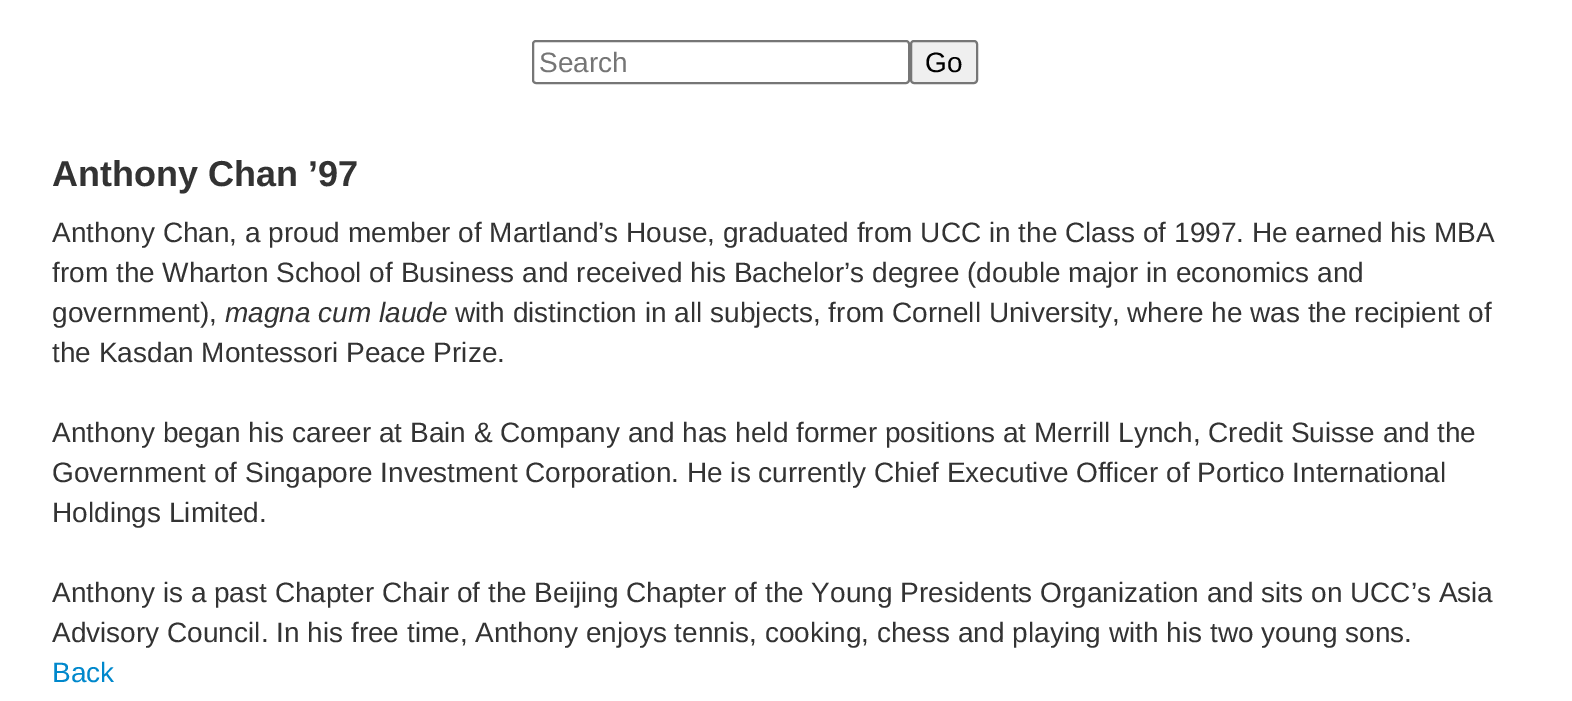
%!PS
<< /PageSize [1572 701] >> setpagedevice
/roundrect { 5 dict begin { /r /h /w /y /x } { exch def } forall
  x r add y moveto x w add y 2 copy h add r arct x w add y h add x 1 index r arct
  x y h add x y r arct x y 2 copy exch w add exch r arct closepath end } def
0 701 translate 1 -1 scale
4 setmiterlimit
1 setgray
0 0 1572 701 rectfill
0.463 setgray
2 setlinewidth
533 41 376 42 3 roundrect stroke
/LiberationSans-Regular [28 0 0 -28 0 0] selectfont
0.459 setgray
539 72 moveto (Search) show
0.937 setgray
911 41 66 42 3 roundrect gsave fill grestore
0.463 setgray
stroke
0 setgray
925 72 moveto (Go) show
/LiberationSans-Bold [36 0 0 -36 0 0] selectfont
0.2 setgray
52 186 moveto (Anthony Chan ’97) show
/LiberationSans-Regular [28 0 0 -28 0 0] selectfont
52 242 moveto (Anthony Chan, a proud member of Martland’s House, graduated from UCC in the Class of 1997. He earned his MBA) show
52 282 moveto (from the Wharton School of Business and received his Bachelor’s degree \(double major in economics and) show
52 322 moveto (government\),) show
/LiberationSans-Italic [28 0 0 -28 0 0] selectfont
225 322 moveto (magna cum laude) show
/LiberationSans-Regular [28 0 0 -28 0 0] selectfont
455 322 moveto (with distinction in all subjects, from Cornell University, where he was the recipient of) show
52 362 moveto (the Kasdan Montessori Peace Prize.) show
52 442 moveto (Anthony began his career at Bain & Company and has held former positions at Merrill Lynch, Credit Suisse and the) show
52 482 moveto (Government of Singapore Investment Corporation. He is currently Chief Executive Officer of Portico International) show
52 522 moveto (Holdings Limited.) show
52 602 moveto (Anthony is a past Chapter Chair of the Beijing Chapter of the Young Presidents Organization and sits on UCC’s Asia) show
52 642 moveto (Advisory Council. In his free time, Anthony enjoys tennis, cooking, chess and playing with his two young sons.) show
0 0.533 0.8 setrgbcolor
52 682 moveto (Back) show
showpage
